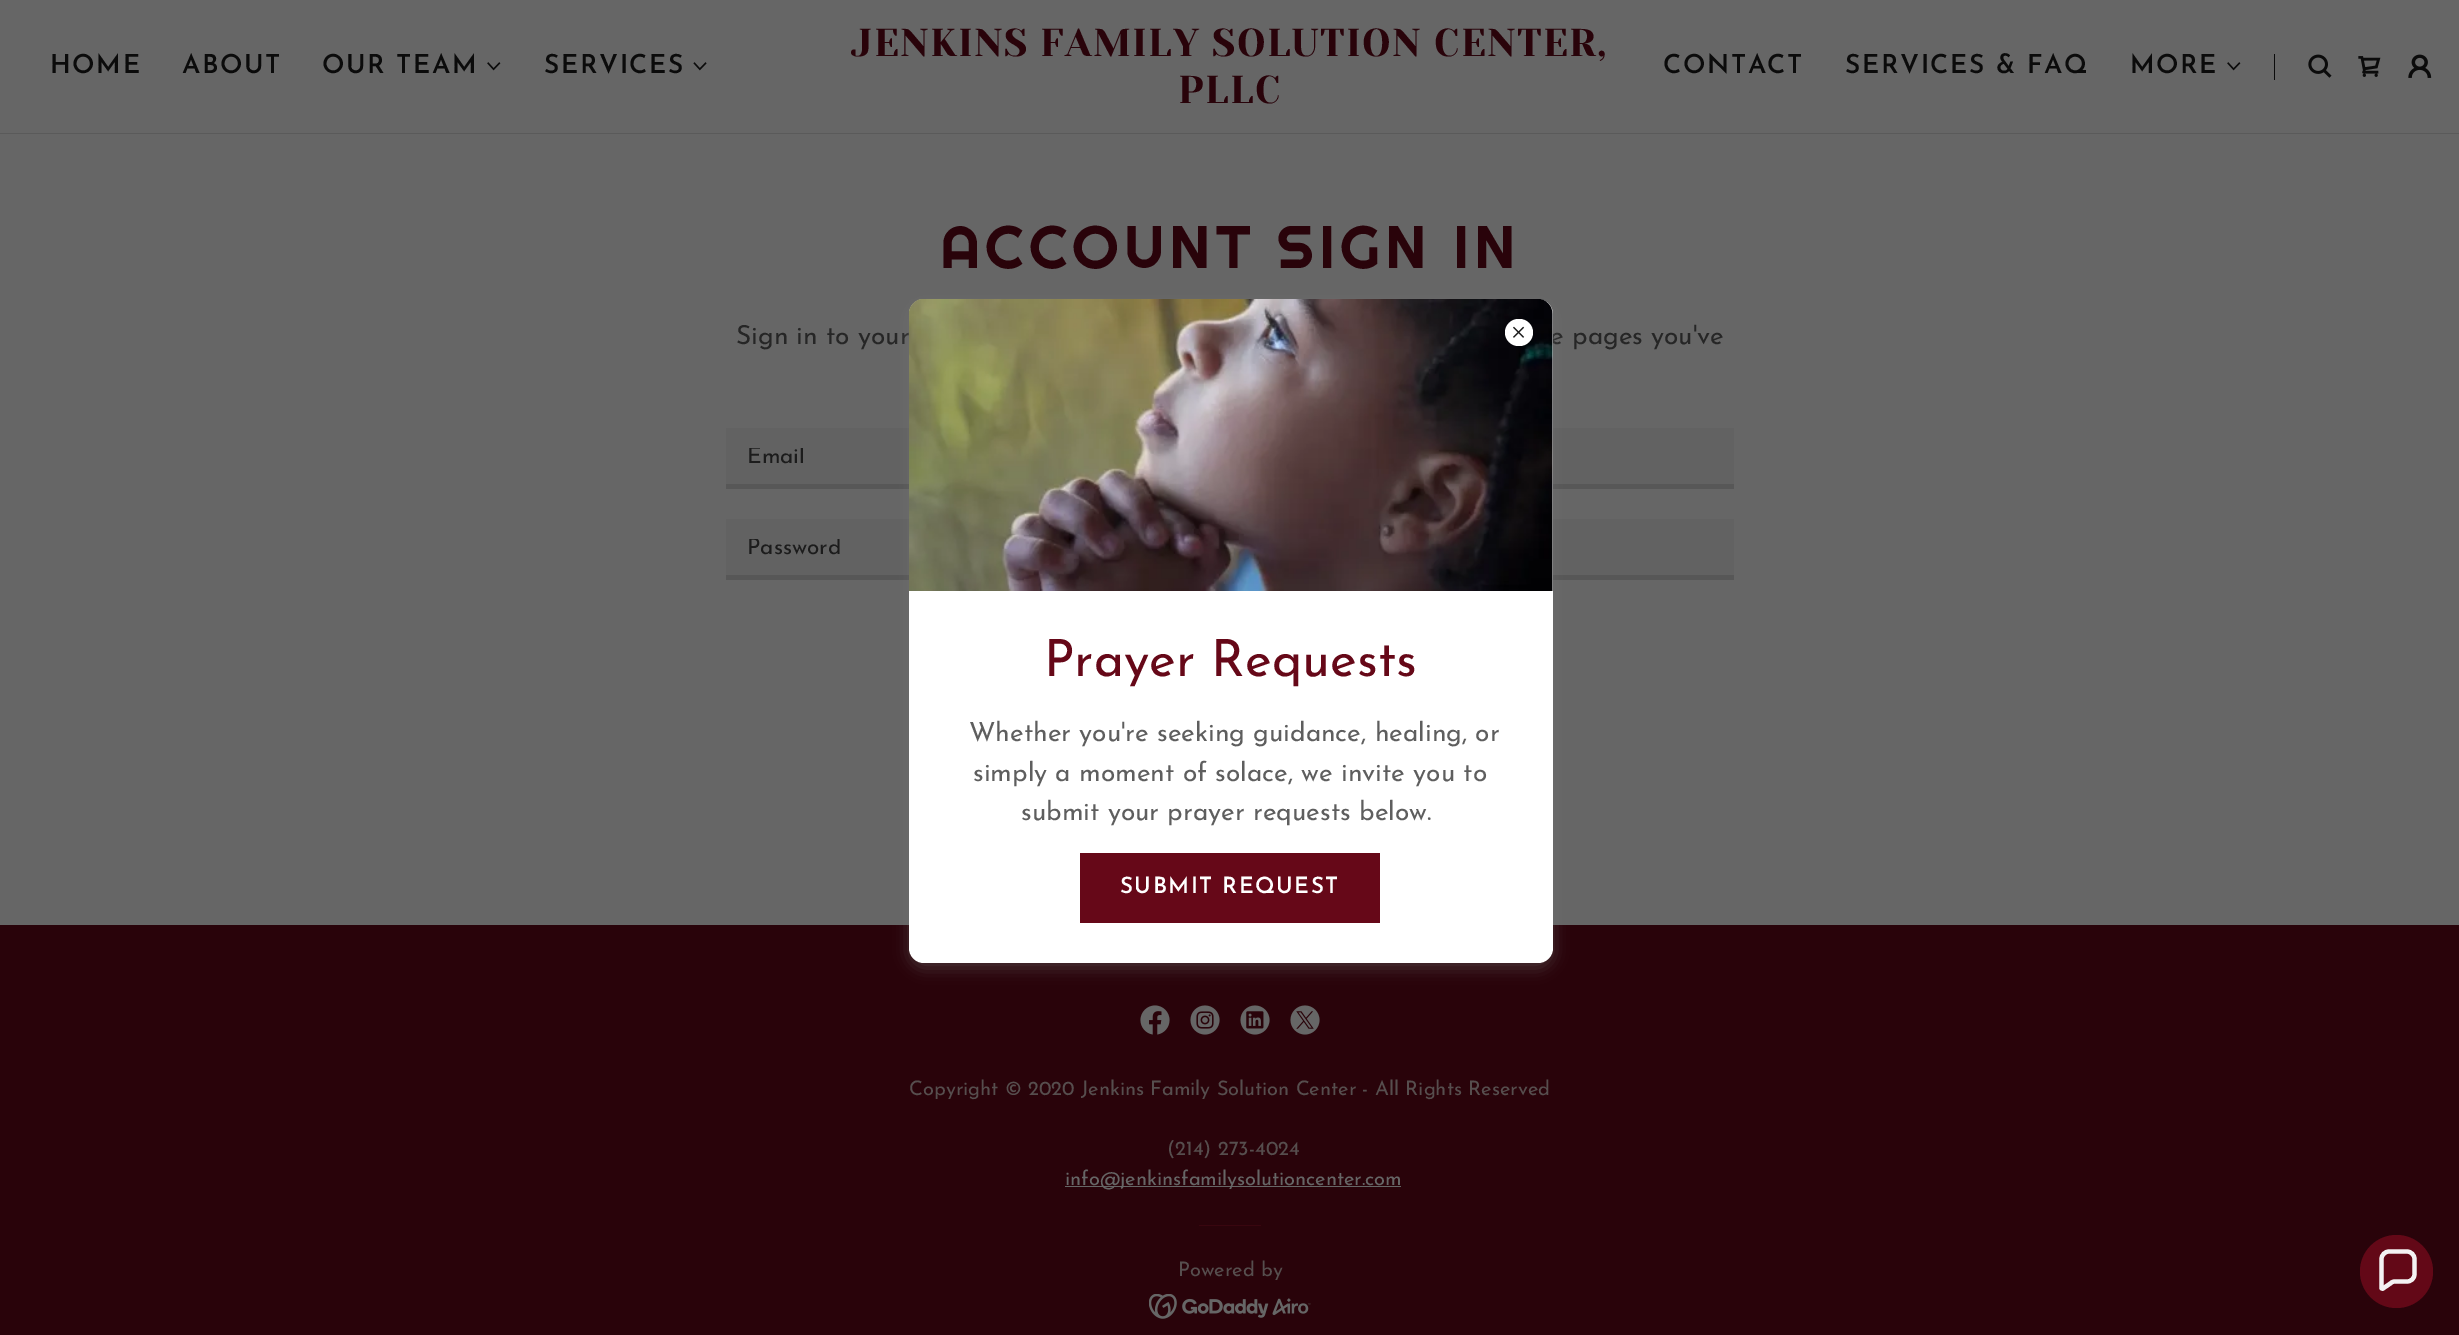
%!PS
<< /PageSize [2459 1335] /PageUsesTransparency true >> setpagedevice
/alpha { dup .setfillconstantalpha .setstrokeconstantalpha } def
/roundrect { 5 dict begin { /r /h /w /y /x } { exch def } forall
  x r add y moveto x w add y 2 copy h add r arct x w add y h add x 1 index r arct
  x y h add x y r arct x y 2 copy exch w add exch r arct closepath end } def
/shadow { 12 dict begin { /a /b /q /h /w /y /x } { exch def } forall gsave /was 0 def
  9 -2 -9 { dup b mul 4 div /e exch def 1 sub .425 mul 2.718 exch exp 1 add a .99 .min exch div /now exch def
    1 1 now sub 1 was sub div sub alpha /was now def
    w h .min e 2 mul add 0 gt { x e sub y e sub w e 2 mul add h e 2 mul add
      q e add b .6 mul add w h .min 2 div e add .min 0 .max roundrect fill } if } for grestore end } def
/picture { 5 dict begin { /h /w /y /x /name } { exch def } forall
  gsave x y translate w h scale
  w h 8 [w 0 0 h 0 0] name (r) file false 3 colorimage grestore end } def
0 .pushpdf14devicefilter
0 1335 translate 1 -1 scale
4 setmiterlimit
0.161 0.012 0.039 setrgbcolor
0 0 2459 1335 rectfill
0.4 setgray
0 0 2459 133 rectfill
/JosefinSans-SemiBold [26.25 0 0 -26.25 0 0] selectfont
0.043 setgray
50 73 moveto 1.6 0 (HOME) ashow
182 73 moveto 1.6 0 (ABOUT) ashow
322 73 moveto 1.6 0 (OUR TEAM) ashow
(img1.rgb) 487 62 14 9 picture
544 73 moveto 1.6 0 (SERVICES) ashow
(img2.rgb) 693 62 14 9 picture
/YesevaOne-Regular [38.75 0 0 -38.75 0 0] selectfont
0.161 0.012 0.039 setrgbcolor
851 56 moveto 1.25 0 (JENKINS FAMILY SOLUTION CENTER,) ashow
1178 103 moveto 1.25 0 (PLLC) ashow
/JosefinSans-SemiBold [26.25 0 0 -26.25 0 0] selectfont
0.043 setgray
1663 73 moveto 1.6 0 (CONTACT) ashow
1845 73 moveto 1.6 0 (SERVICES & FAQ) ashow
2130 73 moveto 1.6 0 (MORE) ashow
(img1.rgb) 2227 62 14 9 picture
2274 54 1 26 rectfill
(img3.rgb) 2308 54 24 24 picture
(img4.rgb) 2358 56 23 21 picture
(img5.rgb) 2408 54 24 24 picture
0.353 setgray
0 133 2459 1 rectfill
0.4 setgray
0 134 2459 791 rectfill
/Righteous-Regular [60 0 0 -60 0 0] selectfont
0.161 0.012 0.039 setrgbcolor
940 268 moveto 5 0 (ACCOUNT SIGN IN) ashow
/JosefinSans-Regular [26.25 0 0 -26.25 0 0] selectfont
0.149 setgray
736 344 moveto (Sign in to your) show
1550 344 moveto (e pages you've) show
0.384 setgray
726 428 1008 56 rectfill
0.341 setgray
726 484 1008 5 rectfill
gsave
746 448 968 22 rectclip
/JosefinSans-Regular [22.5 0 0 -22.5 0 0] selectfont
0.11 setgray
747 463 moveto (Email) show
grestore
0.384 setgray
726 519 1008 56 rectfill
0.341 setgray
726 575 1008 5 rectfill
gsave
746 539 968 22 rectclip
/JosefinSans-Regular [22.5 0 0 -22.5 0 0] selectfont
0.11 setgray
747 554 moveto (Password) show
grestore
0.459 setgray
909 304 644 664 15 7.5 0.4 shadow
1 setgray
909 299 644 664 15 roundrect fill
(img7.rgb) 909 299 644 292 picture
1505 319 28 27 13.5 roundrect fill
(img6.rgb) 1513 326 12 12 picture
/JosefinSans-Regular [51.25 0 0 -51.25 0 0] selectfont
0.4 0.031 0.094 setrgbcolor
1044 676 moveto (Prayer Requests) show
/JosefinSans-Regular [26.25 0 0 -26.25 0 0] selectfont
0.369 setgray
969 741 moveto (Whether you're seeking guidance, healing, or) show
973 781 moveto (simply a moment of solace, we invite you to) show
1021 820 moveto (submit your prayer requests below.) show
0.4 0.031 0.094 setrgbcolor
1080 853 300 70 rectfill
/JosefinSans-SemiBold [22.5 0 0 -22.5 0 0] selectfont
1 setgray
1120 893 moveto 1.4 0 (SUBMIT REQUEST) ashow
(img8.rgb) 1140 1005 30 30 picture
(img9.rgb) 1190 1005 30 30 picture
(img10.rgb) 1240 1005 30 30 picture
(img11.rgb) 1290 1005 30 30 picture
/JosefinSans-Regular [20 0 0 -20 0 0] selectfont
0.337 0.306 0.306 setrgbcolor
909 1095 moveto (Copyright © 2020 Jenkins Family Solution Center - All Rights Reserved) show
1167 1155 moveto (\(214\) 273-4024) show
0.4 setgray
1065 1186 336 1 rectfill
1065 1185 moveto (info@jenkinsfamilysolutioncenter.com) show
0.224 0.024 0.059 setrgbcolor
1199 1225 62 1 rectfill
0.337 0.306 0.306 setrgbcolor
1178 1276 moveto (Powered by) show
(img12.rgb) 1149 1294 162 25 picture
0.388 0.031 0.09 setrgbcolor
newpath 2396.5 1271.5 36.5 0 360 arc closepath fill
0.957 0.949 0.953 setrgbcolor
4.2 setlinewidth
newpath 2407 1251.5 moveto 2389 1251.5 lineto 2385 1251.5 2381.5 1255 2381.5 1259 curveto 2381.5 1288 lineto 2381.5 1288.5 2382.5 1289 2383 1288.5 curveto 2391 1283 lineto 2392 1282 2393.5 1281.5 2394.5 1281.5 curveto 2407 1281.5 lineto 2411 1281.5 2414.5 1278.5 2414.5 1274 curveto 2414.5 1259 lineto 2414.5 1255 2411 1251.5 2407 1251.5 curveto closepath stroke
.poppdf14devicefilter showpage
